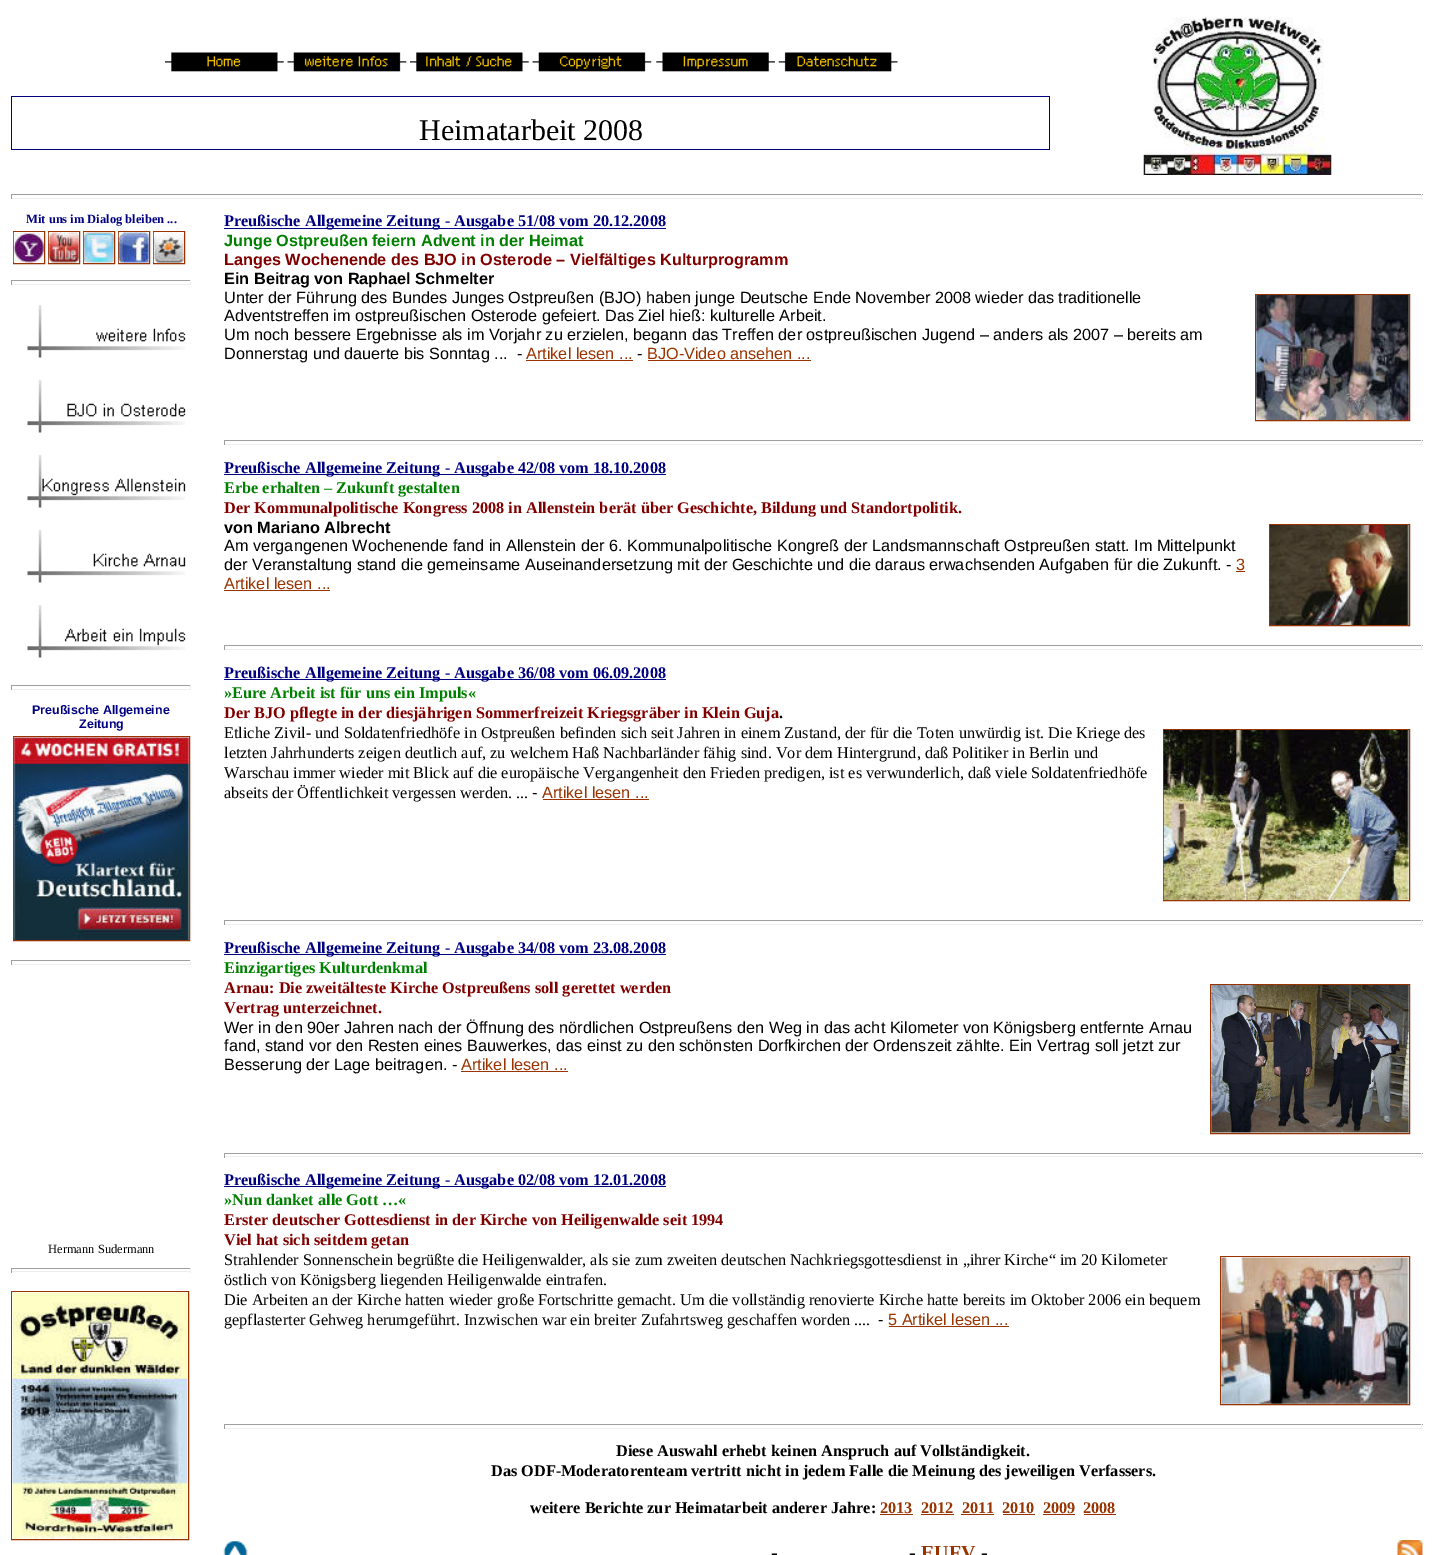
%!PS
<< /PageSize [1433 1555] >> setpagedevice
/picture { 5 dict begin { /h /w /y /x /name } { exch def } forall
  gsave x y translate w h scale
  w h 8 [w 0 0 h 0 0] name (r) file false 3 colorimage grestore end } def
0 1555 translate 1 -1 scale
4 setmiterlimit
1 setgray
0 0 1433 1555 rectfill
(img1.rgb) 165 52 119 20 picture
(img2.rgb) 287 52 120 20 picture
(img3.rgb) 410 52 119 20 picture
(img4.rgb) 532 52 120 20 picture
(img5.rgb) 656 52 119 20 picture
(img6.rgb) 778 52 120 20 picture
0 0 0.502 setrgbcolor
11 96 1039 1 rectfill
1049 96 1 54 rectfill
11 149 1039 1 rectfill
11 96 1 54 rectfill
/LiberationSerif-Regular [30 0 0 -30 0 0] selectfont
0 setgray
419 140 moveto (Heimatarbeit 2008) show
(img7.rgb) 1143 17 189 158 picture
0.624 setgray
11 194 1412 1 rectfill
0.933 setgray
1421 194 1 5 rectfill
11 198 1412 1 rectfill
0.624 setgray
11 194 1 5 rectfill
/LiberationSerif-Bold [12.5 0 0 -12.5 0 0] selectfont
0 0 0.502 setrgbcolor
26 223 moveto (Mit uns im Dialog bleiben ...) show
0.6 0.2 0 setrgbcolor
13.5 231.5 31 32 rectstroke
(img8.rgb) 13 232 31 31 picture
48.5 231.5 31 32 rectstroke
(img9.rgb) 48 232 31 31 picture
83.5 231.5 31 32 rectstroke
(img10.rgb) 83 232 31 31 picture
118.5 231.5 31 32 rectstroke
(img11.rgb) 118 232 31 31 picture
153.5 231.5 31 32 rectstroke
(img12.rgb) 153 232 31 31 picture
0.624 setgray
11 280 180 1 rectfill
0.933 setgray
190 280 1 5 rectfill
11 284 180 1 rectfill
0.624 setgray
11 280 1 5 rectfill
(img13.rgb) 27 305 159 53 picture
(img14.rgb) 27 380 159 53 picture
(img15.rgb) 27 455 159 53 picture
(img16.rgb) 27 530 159 53 picture
(img17.rgb) 27 605 159 53 picture
11 685 180 1 rectfill
0.933 setgray
190 685 1 5 rectfill
11 689 180 1 rectfill
0.624 setgray
11 685 1 5 rectfill
/LiberationSans-Bold [12.5 0 0 -12.5 0 0] selectfont
0 0 0.502 setrgbcolor
32 714 moveto (Preußische Allgemeine) show
79 728 moveto (Zeitung) show
0.6 0.2 0 setrgbcolor
13.5 736.5 176 204 rectstroke
(img18.rgb) 13 737 176 203 picture
0.624 setgray
11 960 180 1 rectfill
0.933 setgray
190 960 1 5 rectfill
11 964 180 1 rectfill
0.624 setgray
11 960 1 5 rectfill
/LiberationSerif-Regular [12.5 0 0 -12.5 0 0] selectfont
0 setgray
48 1253 moveto (Hermann Sudermann) show
0.624 setgray
11 1268 180 1 rectfill
0.933 setgray
190 1268 1 5 rectfill
11 1271 180 1 rectfill
0.624 setgray
11 1268 1 5 rectfill
0.6 0.2 0 setrgbcolor
11.5 1291.5 177 248 rectstroke
(img19.rgb) 12 1292 176 247 picture
0 0 0.502 setrgbcolor
224 228 442 1 rectfill
/LiberationSerif-Bold [16.25 0 0 -16.25 0 0] selectfont
224 226 moveto (Preußische Allgemeine Zeitung - Ausgabe 51/08 vom 20.12.2008) show
/LiberationSans-Bold [16.25 0 0 -16.25 0 0] selectfont
0 0.502 0 setrgbcolor
224 246 moveto (Junge Ostpreußen feiern Advent in der Heimat) show
0.502 0 0 setrgbcolor
224 265 moveto (Langes Wochenende des BJO in Osterode – Vielfältiges Kulturprogramm) show
0 setgray
224 284 moveto (Ein Beitrag von Raphael Schmelter) show
/LiberationSans-Regular [16.25 0 0 -16.25 0 0] selectfont
224 303 moveto (Unter der Führung des Bundes Junges Ostpreußen \(BJO\) haben junge Deutsche Ende November 2008 wieder das traditionelle) show
0.6 0.2 0 setrgbcolor
1255.5 294.5 154 126 rectstroke
(img20.rgb) 1256 295 153 125 picture
0 setgray
224 321 moveto (Adventstreffen im ostpreußischen Osterode gefeiert. Das Ziel hieß: kulturelle Arbeit.) show
224 340 moveto (Um noch bessere Ergebnisse als im Vorjahr zu erzielen, begann das Treffen der ostpreußischen Jugend – anders als 2007 – bereits am) show
224 359 moveto (Donnerstag und dauerte bis Sonntag ...  -) show
0.6 0.2 0 setrgbcolor
526 359 moveto (Artikel lesen ...) show
526 360 107 1 rectfill
0 setgray
637 359 moveto (-) show
0.6 0.2 0 setrgbcolor
647 359 moveto (BJO-Video ansehen ...) show
648 360 163 1 rectfill
0.624 setgray
224 440 1199 1 rectfill
0.933 setgray
1421 440 1 5 rectfill
224 444 1199 1 rectfill
0.624 setgray
224 440 1 5 rectfill
0 0 0.502 setrgbcolor
224 474 442 1 rectfill
/LiberationSerif-Bold [16.25 0 0 -16.25 0 0] selectfont
224 473 moveto (Preußische Allgemeine Zeitung - Ausgabe 42/08 vom 18.10.2008) show
0 0.502 0 setrgbcolor
224 493 moveto (Erbe erhalten – Zukunft gestalten) show
0.502 0 0 setrgbcolor
224 513 moveto (Der Kommunalpolitische Kongress 2008 in Allenstein berät über Geschichte, Bildung und Standortpolitik.) show
/LiberationSans-Bold [16.25 0 0 -16.25 0 0] selectfont
0 setgray
224 533 moveto (von Mariano Albrecht) show
0.6 0.2 0 setrgbcolor
1269.5 524.5 140 101 rectstroke
(img21.rgb) 1270 525 139 100 picture
/LiberationSans-Regular [16.25 0 0 -16.25 0 0] selectfont
0 setgray
224 551 moveto (Am vergangenen Wochenende fand in Allenstein der 6. Kommunalpolitische Kongreß der Landsmannschaft Ostpreußen statt. Im Mittelpunkt) show
224 570 moveto (der Veranstaltung stand die gemeinsame Auseinandersetzung mit der Geschichte und die daraus erwachsenden Aufgaben für die Zukunft. -) show
0.6 0.2 0 setrgbcolor
1236 570 moveto (3) show
1236 571 9 1 rectfill
224 589 moveto (Artikel lesen ...) show
224 590 106 1 rectfill
0.624 setgray
224 645 1199 1 rectfill
0.933 setgray
1421 645 1 5 rectfill
224 649 1199 1 rectfill
0.624 setgray
224 645 1 5 rectfill
0 0 0.502 setrgbcolor
224 679 442 1 rectfill
/LiberationSerif-Bold [16.25 0 0 -16.25 0 0] selectfont
224 678 moveto (Preußische Allgemeine Zeitung - Ausgabe 36/08 vom 06.09.2008) show
0 0.502 0 setrgbcolor
224 698 moveto (»Eure Arbeit ist für uns ein Impuls«) show
0.502 0 0 setrgbcolor
224 718 moveto (Der BJO pflegte in der diesjährigen Sommerfreizeit Kriegsgräber in Klein Guja) show
0 setgray
779 718 moveto (.) show
/LiberationSerif-Regular [16.25 0 0 -16.25 0 0] selectfont
224 738 moveto (Etliche Zivil- und Soldatenfriedhöfe in Ostpreußen befinden sich seit Jahren in einem Zustand, der für die Toten unwürdig ist. Die Kriege des) show
0.6 0.2 0 setrgbcolor
1163.5 729.5 246 171 rectstroke
(img22.rgb) 1163 730 246 170 picture
0 setgray
224 758 moveto (letzten Jahrhunderts zeigen deutlich auf, zu welchem Haß Nachbarländer fähig sind. Vor dem Hintergrund, daß Politiker in Berlin und) show
224 778 moveto (Warschau immer wieder mit Blick auf die europäische Vergangenheit den Frieden predigen, ist es verwunderlich, daß viele Soldatenfriedhöfe) show
224 798 moveto (abseits der Öffentlichkeit vergessen werden. ...) show
/LiberationSans-Regular [16.25 0 0 -16.25 0 0] selectfont
532 798 moveto (-) show
0.6 0.2 0 setrgbcolor
542 798 moveto (Artikel lesen ...) show
543 799 106 1 rectfill
0.624 setgray
224 920 1199 1 rectfill
0.933 setgray
1421 920 1 5 rectfill
224 924 1199 1 rectfill
0.624 setgray
224 920 1 5 rectfill
0 0 0.502 setrgbcolor
224 954 442 1 rectfill
/LiberationSerif-Bold [16.25 0 0 -16.25 0 0] selectfont
224 953 moveto (Preußische Allgemeine Zeitung - Ausgabe 34/08 vom 23.08.2008) show
0 0.502 0 setrgbcolor
224 973 moveto (Einzigartiges Kulturdenkmal) show
0.502 0 0 setrgbcolor
224 993 moveto (Arnau: Die zweitälteste Kirche Ostpreußens soll gerettet werden) show
0.6 0.2 0 setrgbcolor
1210.5 984.5 199 149 rectstroke
(img23.rgb) 1211 985 198 148 picture
0.502 0 0 setrgbcolor
224 1013 moveto (Vertrag unterzeichnet.) show
/LiberationSans-Regular [16.25 0 0 -16.25 0 0] selectfont
0 setgray
224 1033 moveto (Wer in den 90er Jahren nach der Öffnung des nördlichen Ostpreußens den Weg in das acht Kilometer von Königsberg entfernte Arnau) show
224 1051 moveto (fand, stand vor den Resten eines Bauwerkes, das einst zu den schönsten Dorfkirchen der Ordenszeit zählte. Ein Vertrag soll jetzt zur) show
224 1070 moveto (Besserung der Lage beitragen. -) show
0.6 0.2 0 setrgbcolor
461 1070 moveto (Artikel lesen ...) show
461 1071 107 1 rectfill
0.624 setgray
224 1153 1199 1 rectfill
0.933 setgray
1421 1153 1 5 rectfill
224 1156 1199 1 rectfill
0.624 setgray
224 1153 1 5 rectfill
0 0 0.502 setrgbcolor
224 1186 442 1 rectfill
/LiberationSerif-Bold [16.25 0 0 -16.25 0 0] selectfont
224 1185 moveto (Preußische Allgemeine Zeitung - Ausgabe 02/08 vom 12.01.2008) show
0 0.502 0 setrgbcolor
224 1205 moveto (»Nun danket alle Gott …«) show
0.502 0 0 setrgbcolor
224 1225 moveto (Erster deutscher Gottesdienst in der Kirche von Heiligenwalde seit 1994) show
224 1245 moveto (Viel hat sich seitdem getan) show
/LiberationSerif-Regular [16.25 0 0 -16.25 0 0] selectfont
0 setgray
224 1265 moveto (Strahlender Sonnenschein begrüßte die Heiligenwalder, als sie zum zweiten deutschen Nachkriegsgottesdienst in „ihrer Kirche“ im 20 Kilometer) show
0.6 0.2 0 setrgbcolor
1220.5 1256.5 189 148 rectstroke
(img24.rgb) 1221 1257 188 147 picture
0 setgray
224 1285 moveto (östlich von Königsberg liegenden Heiligenwalde eintrafen.) show
224 1305 moveto (Die Arbeiten an der Kirche hatten wieder große Fortschritte gemacht. Um die vollständig renovierte Kirche hatte bereits im Oktober 2006 ein bequem) show
224 1325 moveto (gepflasterter Gehweg herumgeführt. Inzwischen war ein breiter Zufahrtsweg geschaffen worden ....) show
/LiberationSans-Regular [16.25 0 0 -16.25 0 0] selectfont
878 1325 moveto (-) show
0.6 0.2 0 setrgbcolor
888 1325 moveto (5 Artikel lesen ...) show
889 1326 120 1 rectfill
0.624 setgray
224 1424 1199 1 rectfill
0.933 setgray
1421 1424 1 5 rectfill
224 1428 1199 1 rectfill
0.624 setgray
224 1424 1 5 rectfill
/LiberationSerif-Bold [16.25 0 0 -16.25 0 0] selectfont
0 setgray
616 1456 moveto (Diese Auswahl erhebt keinen Anspruch auf Vollständigkeit.) show
491 1476 moveto (Das ODF-Moderatorenteam vertritt nicht in jedem Falle die Meinung des jeweiligen Verfassers.) show
530 1513 moveto (weitere Berichte zur Heimatarbeit anderer Jahre:) show
0.6 0.2 0 setrgbcolor
880 1513 moveto (2013) show
880 1514 33 1 rectfill
921 1513 moveto (2012) show
921 1514 33 1 rectfill
962 1513 moveto (2011) show
961 1514 33 1 rectfill
1002 1513 moveto (2010) show
1003 1514 32 1 rectfill
1043 1513 moveto (2009) show
1043 1514 32 1 rectfill
1083 1513 moveto (2008) show
1084 1514 32 1 rectfill
(img25.rgb) 223 1541 25 14 picture
/LiberationSerif-Bold [20 0 0 -20 0 0] selectfont
0 setgray
771 1559 moveto (-) show
909 1559 moveto (-) show
0.6 0.2 0 setrgbcolor
921 1559 moveto (EUFV) show
0 setgray
981 1559 moveto (-) show
(img26.rgb) 1397 1540 26 15 picture
showpage
